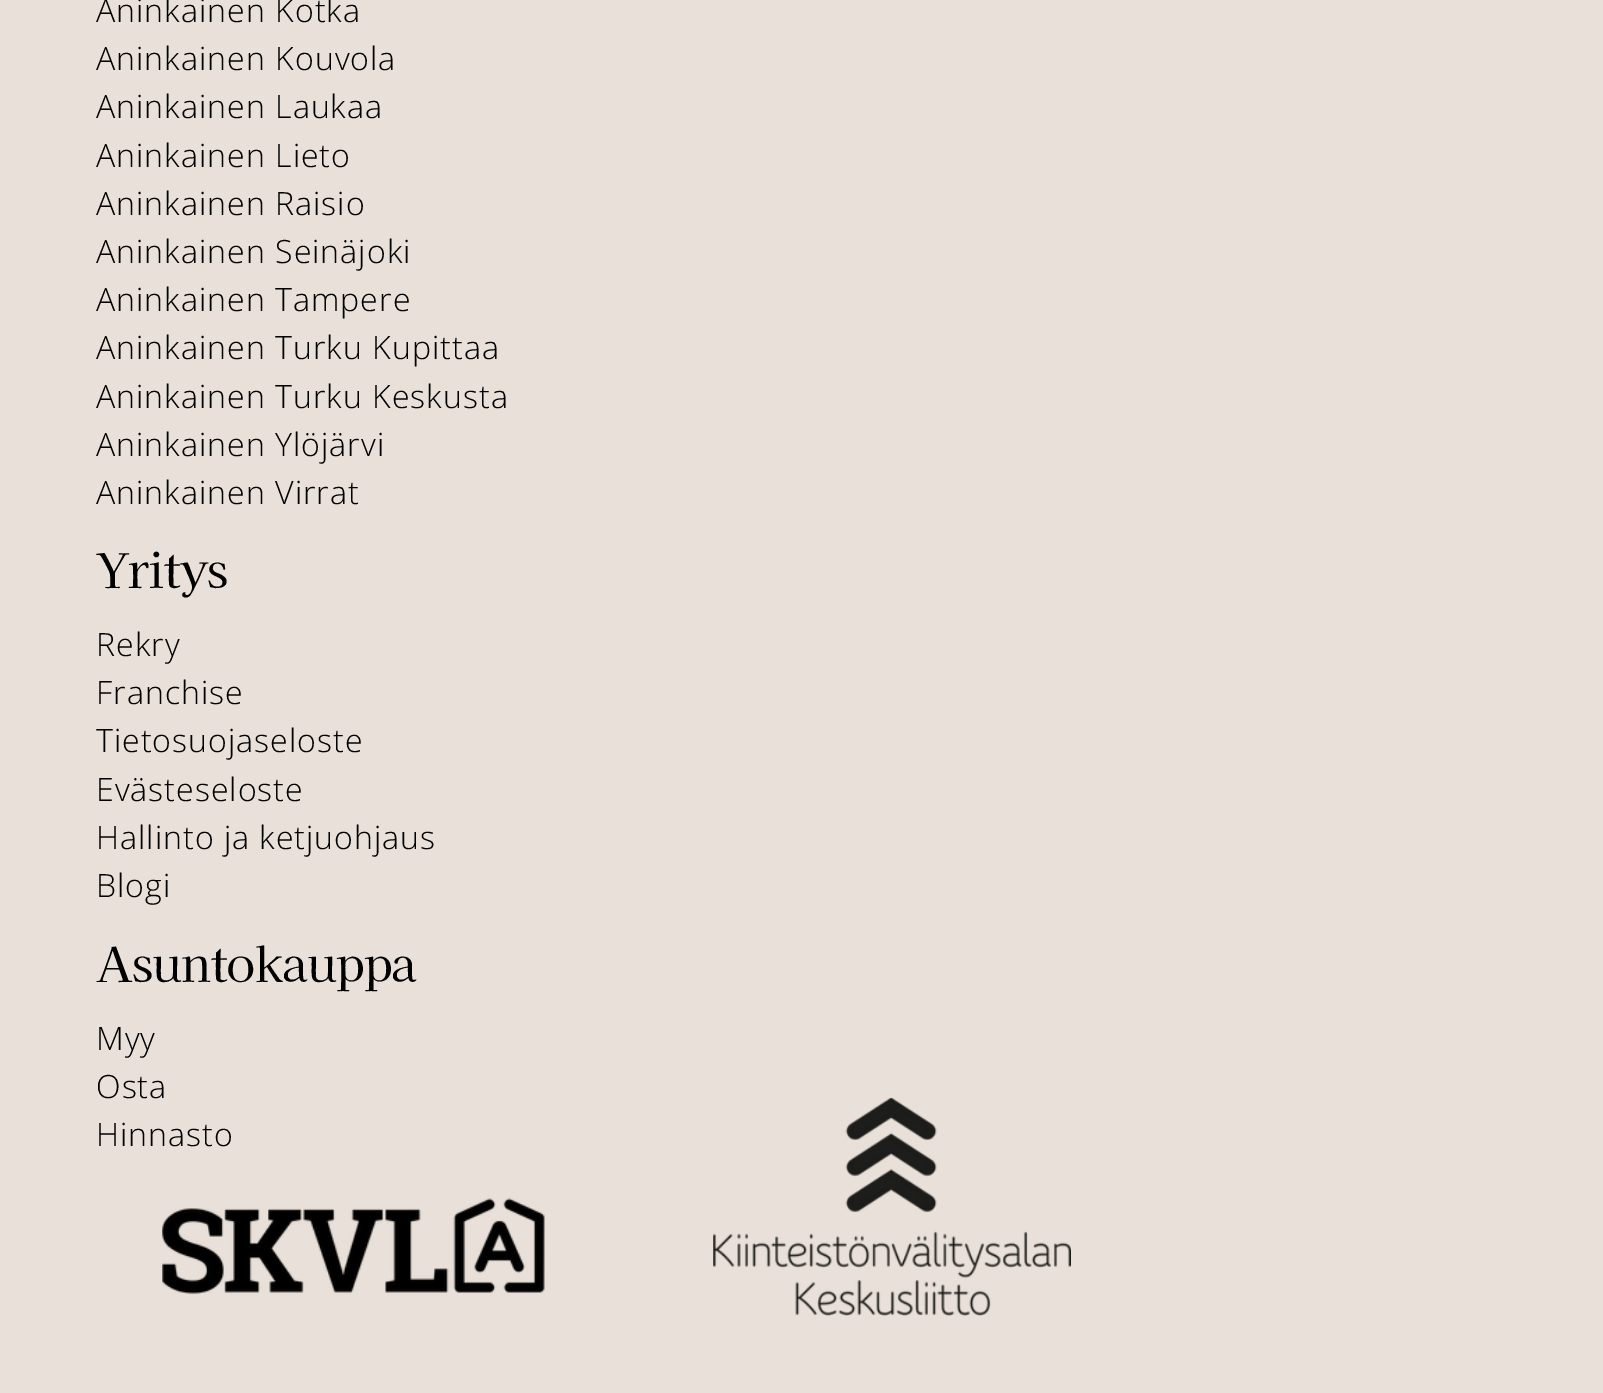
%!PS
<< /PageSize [1603 1393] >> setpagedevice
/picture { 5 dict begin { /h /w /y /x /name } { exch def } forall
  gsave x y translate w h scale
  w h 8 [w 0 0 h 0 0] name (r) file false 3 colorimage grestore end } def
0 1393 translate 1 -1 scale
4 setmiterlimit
0.914 0.882 0.851 setrgbcolor
0 0 1603 1393 rectfill
/OpenSans-Light [32.1 0 0 -32.1 0 0] selectfont
0 setgray
96 22 moveto 1 0 (Aninkainen Kotka) ashow
96 70 moveto 1 0 (Aninkainen Kouvola) ashow
96 118 moveto 1 0 (Aninkainen Laukaa) ashow
96 167 moveto 1 0 (Aninkainen Lieto) ashow
96 215 moveto 1 0 (Aninkainen Raisio) ashow
96 263 moveto 1 0 (Aninkainen Seinäjoki) ashow
96 311 moveto 1 0 (Aninkainen Tampere) ashow
96 359 moveto 1 0 (Aninkainen Turku Kupittaa) ashow
96 408 moveto 1 0 (Aninkainen Turku Keskusta) ashow
96 456 moveto 1 0 (Aninkainen Ylöjärvi) ashow
96 504 moveto 1 0 (Aninkainen Virrat) ashow
/KaiseiOpti-Regular [47.5 0 0 -47.5 0 0] selectfont
96 588 moveto -1 0 (Yritys) ashow
/OpenSans-Light [32.1 0 0 -32.1 0 0] selectfont
96 656 moveto 1 0 (Rekry) ashow
96 704 moveto 1 0 (Franchise) ashow
96 752 moveto 1 0 (Tietosuojaseloste) ashow
96 801 moveto 1 0 (Evästeseloste) ashow
96 849 moveto 1 0 (Hallinto ja ketjuohjaus) ashow
96 897 moveto 1 0 (Blogi) ashow
/KaiseiOpti-Regular [47.5 0 0 -47.5 0 0] selectfont
96 982 moveto -1 0 (Asuntokauppa) ashow
/OpenSans-Light [32.1 0 0 -32.1 0 0] selectfont
96 1050 moveto 1 0 (Myy) ashow
96 1098 moveto 1 0 (Osta) ashow
96 1146 moveto 1 0 (Hinnasto) ashow
(img1.rgb) 713 1097 358 219 picture
(img2.rgb) 162 1196 383 99 picture
showpage
